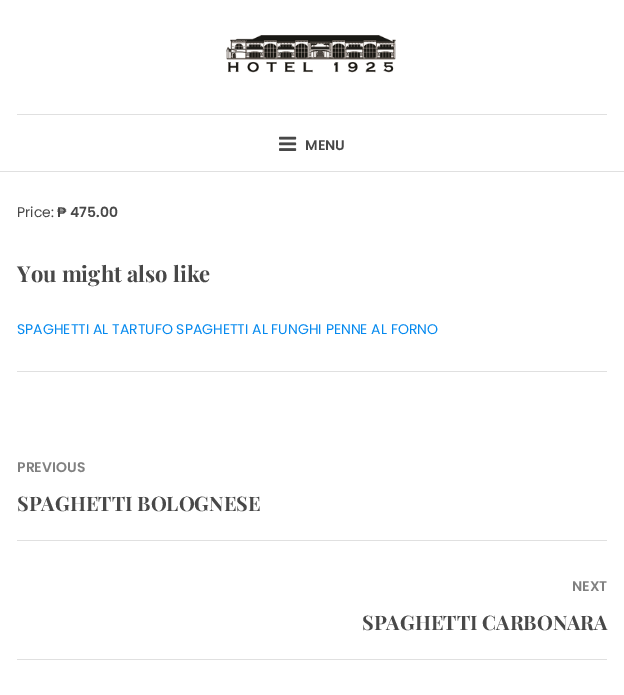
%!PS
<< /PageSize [624 695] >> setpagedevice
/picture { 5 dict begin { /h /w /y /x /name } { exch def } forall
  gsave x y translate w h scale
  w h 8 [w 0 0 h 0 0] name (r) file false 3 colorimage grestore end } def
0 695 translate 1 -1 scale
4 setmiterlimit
1 setgray
0 0 624 695 rectfill
0.878 setgray
17 114 590 1 rectfill
(img1.rgb) 226 35 170 38 picture
0 171 624 1 rectfill
(img2.rgb) 279 136 18 15 picture
/Poppins-SemiBold [14 0 0 -14 0 0] selectfont
0.282 setgray
305 150 moveto (MENU) show
/Poppins-Regular [14 0 0 -14 0 0] selectfont
17 217 moveto (Price:) show
/LiberationSans-Bold [14 0 0 -14 0 0] selectfont
57 217 moveto (₱) show
/Poppins-SemiBold [14 0 0 -14 0 0] selectfont
70 217 moveto (475.00) show
/PlayfairDisplay-Bold [22 0 0 -22 0 0] selectfont
17 282 moveto (You might also like) show
/Poppins-Regular [14 0 0 -14 0 0] selectfont
0.016 0.537 0.937 setrgbcolor
17 334 moveto (SPAGHETTI AL TARTUFO SPAGHETTI AL FUNGHI PENNE AL FORNO) show
0.878 setgray
17 371 590 1 rectfill
17 659 590 1 rectfill
/Poppins-SemiBold [14 0 0 -14 0 0] selectfont
0.502 setgray
17 472 moveto (PREVIOUS) show
/PlayfairDisplay-Bold [20 0 0 -20 0 0] selectfont
0.282 setgray
17 511 moveto (SPAGHETTI BOLOGNESE) show
0.878 setgray
17 540 590 1 rectfill
/Poppins-SemiBold [14 0 0 -14 0 0] selectfont
0.502 setgray
572 591 moveto (NEXT) show
/PlayfairDisplay-Bold [20 0 0 -20 0 0] selectfont
0.282 setgray
362 630 moveto (SPAGHETTI CARBONARA) show
showpage
